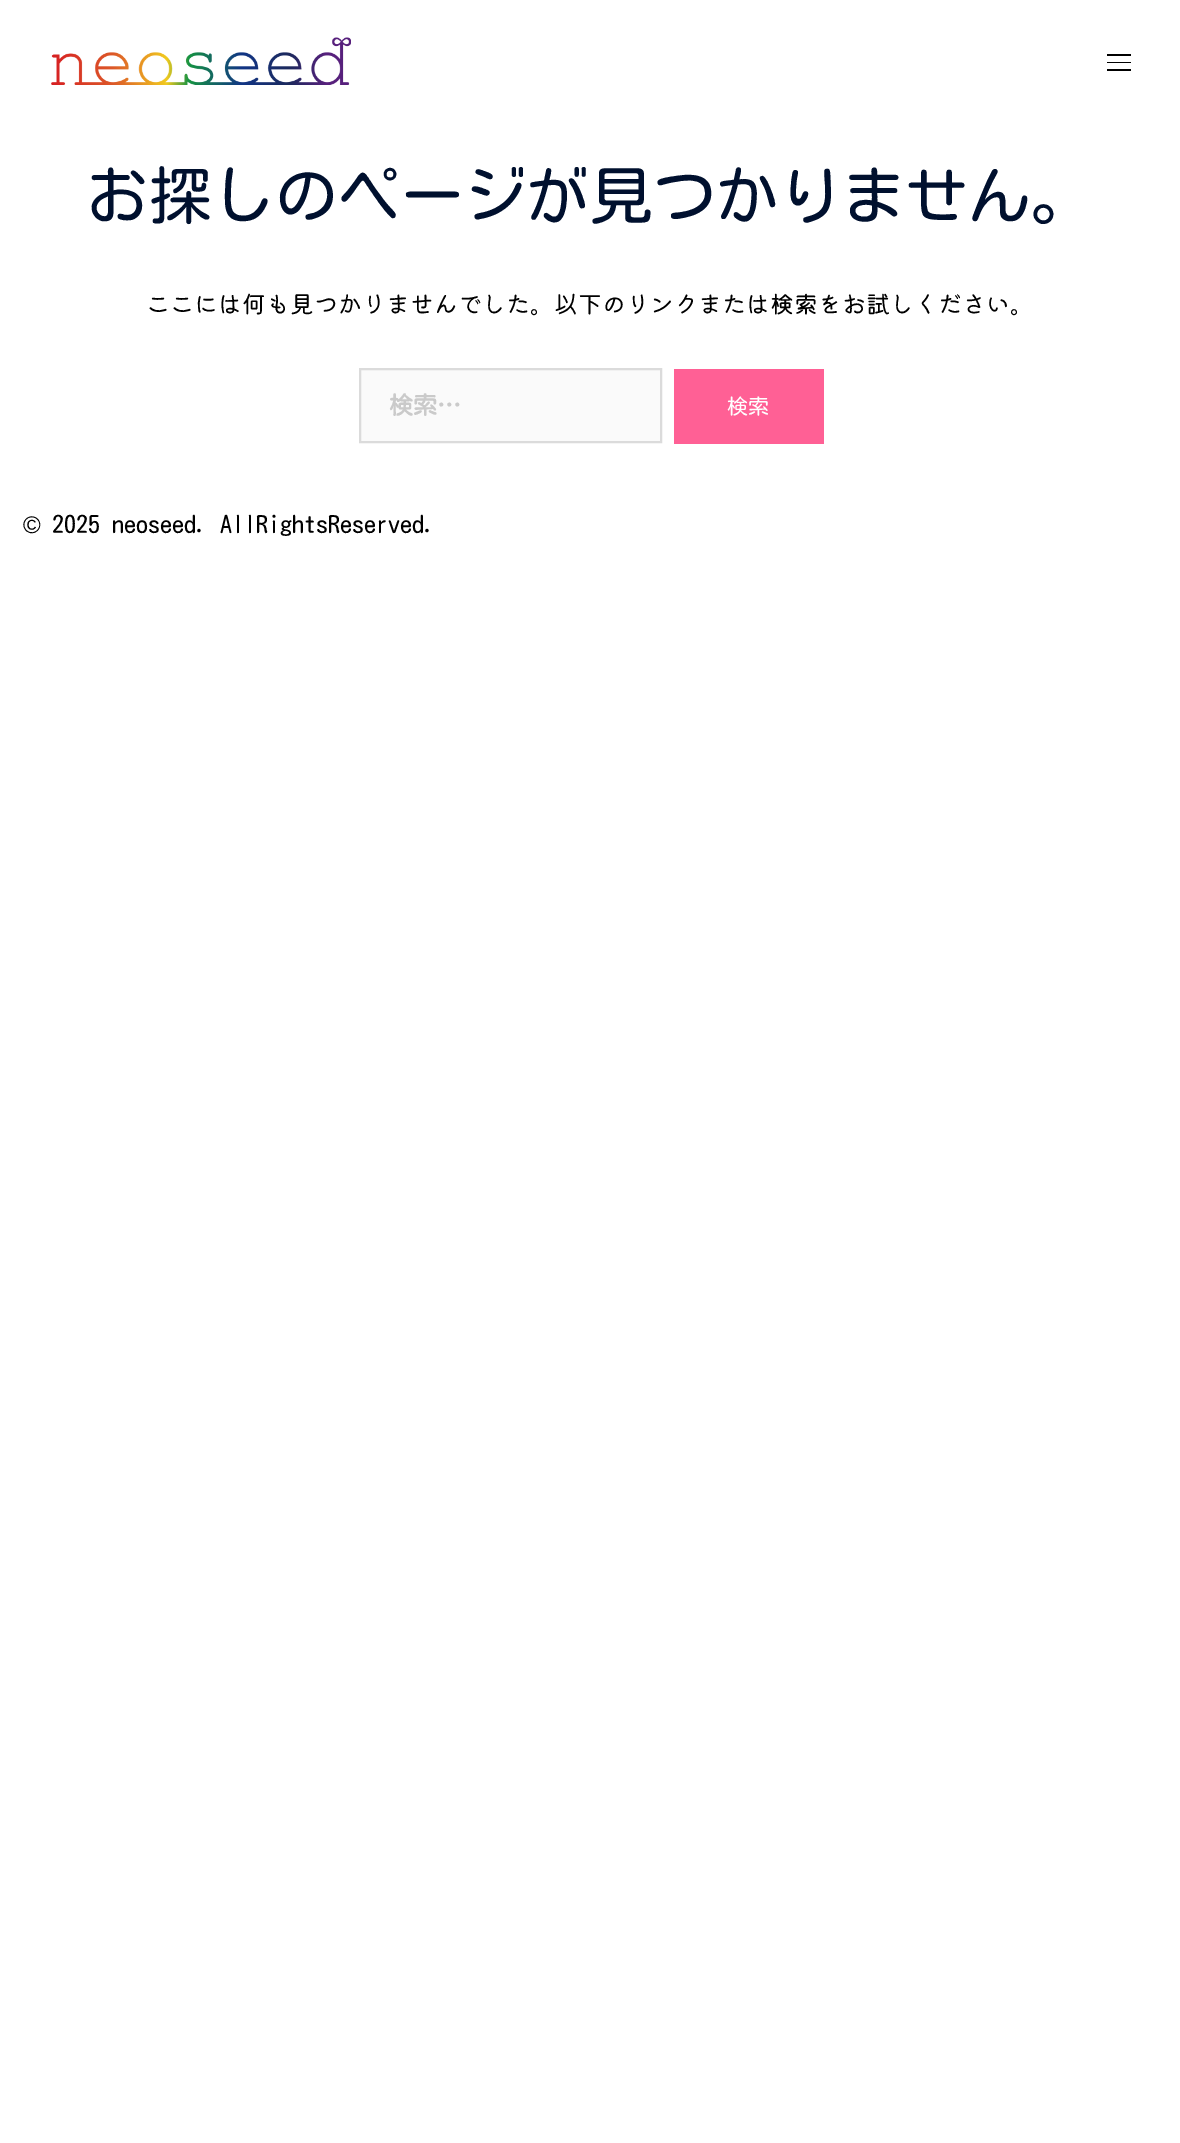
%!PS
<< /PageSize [1180 2143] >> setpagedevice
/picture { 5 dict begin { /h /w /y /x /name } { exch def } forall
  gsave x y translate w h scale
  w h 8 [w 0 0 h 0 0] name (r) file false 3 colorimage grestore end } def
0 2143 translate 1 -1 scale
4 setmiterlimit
1 setgray
0 0 1180 2143 rectfill
(img1.rgb) 51 37 300 48 picture
0 setgray
1107 54 24 2 rectfill
1107 62 24 1 rectfill
1107 69 24 2 rectfill
/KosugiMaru-Regular [63 0 0 -63 0 0] selectfont
0 0.063 0.18 setrgbcolor
86 219 moveto (お探しのページが見つかりません。) show
/KiwiMaru-Regular [24 0 0 -24 0 0] selectfont
0 setgray
146 313 moveto (ここには何も見つかりませんでした。以下のリンクまたは検索をお試しください。) show
0.98 setgray
newpath 360 369 moveto 661 369 lineto 661 442 lineto 360 442 lineto closepath gsave fill grestore
0.859 setgray
2 setlinewidth
stroke
/KosugiMaru-Bold [24 0 0 -24 0 0] selectfont
0.792 setgray
389 414 moveto (検索…) show
1 0.376 0.584 setrgbcolor
674 369 150 75 rectfill
/KosugiMaru-Regular [21 0 0 -21 0 0] selectfont
1 setgray
727 414 moveto (検索) show
/LiberationSans-Regular [24 0 0 -24 0 0] selectfont
0 setgray
23 533 moveto (©) show
/KosugiMaru-Regular [24 0 0 -24 0 0] selectfont
52 533 moveto (2025 neoseed. AllRightsReserved.) show
showpage
